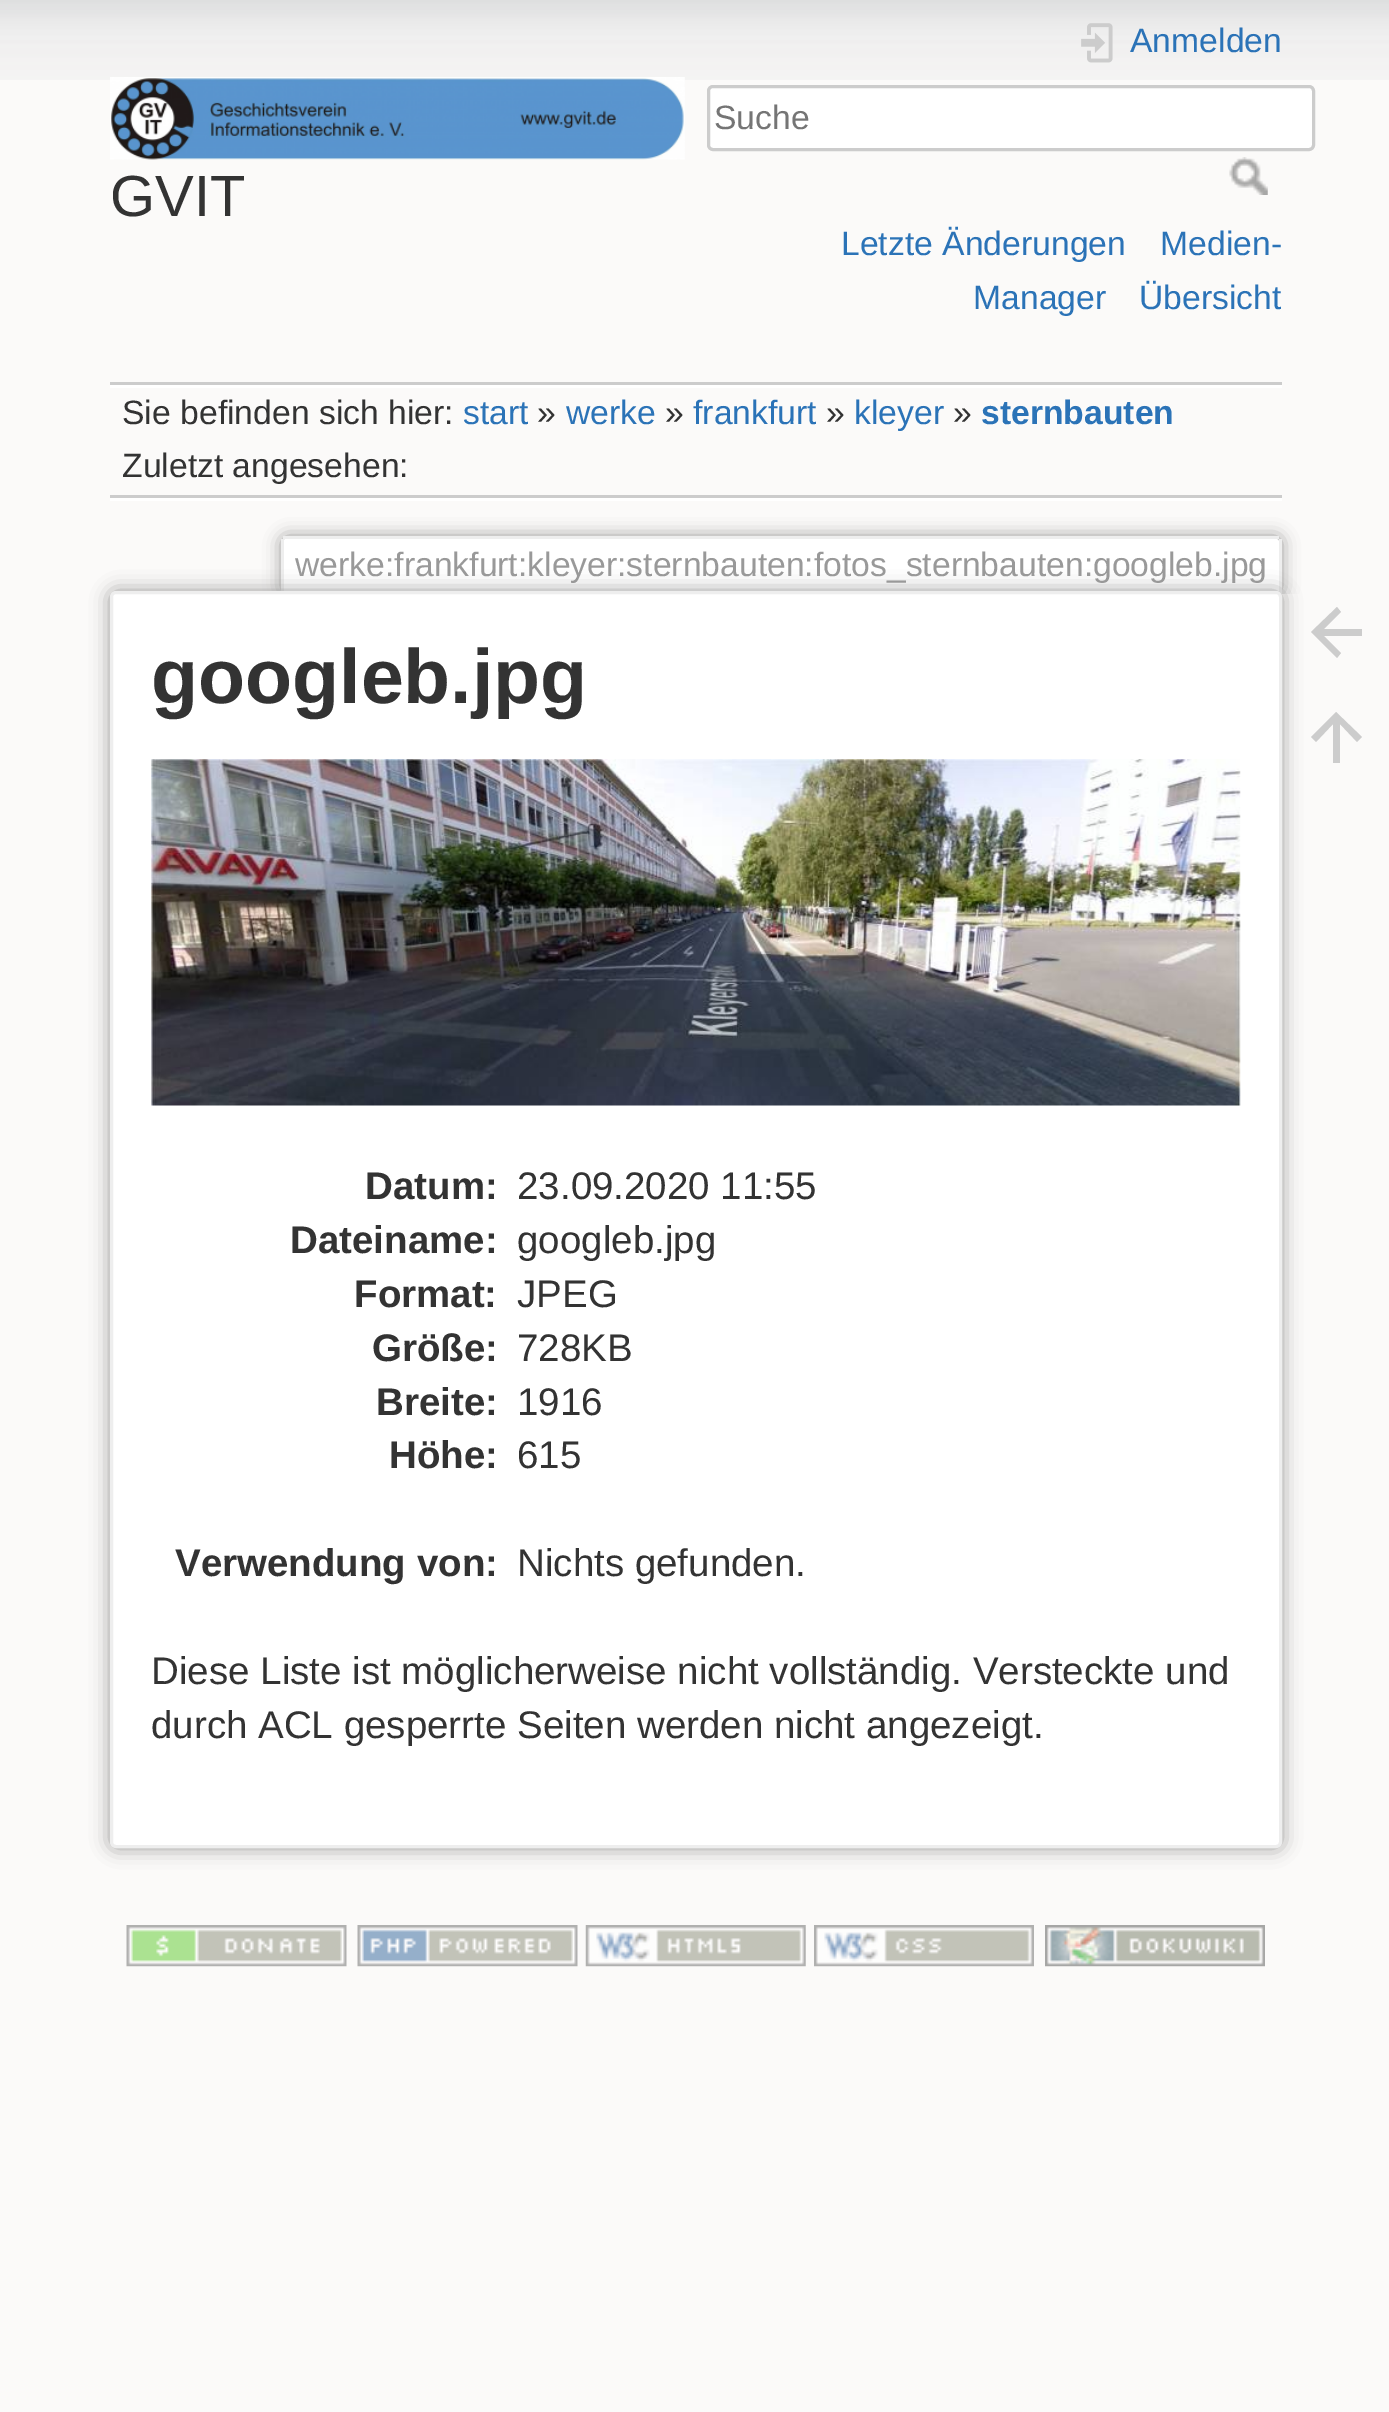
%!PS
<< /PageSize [1389 2412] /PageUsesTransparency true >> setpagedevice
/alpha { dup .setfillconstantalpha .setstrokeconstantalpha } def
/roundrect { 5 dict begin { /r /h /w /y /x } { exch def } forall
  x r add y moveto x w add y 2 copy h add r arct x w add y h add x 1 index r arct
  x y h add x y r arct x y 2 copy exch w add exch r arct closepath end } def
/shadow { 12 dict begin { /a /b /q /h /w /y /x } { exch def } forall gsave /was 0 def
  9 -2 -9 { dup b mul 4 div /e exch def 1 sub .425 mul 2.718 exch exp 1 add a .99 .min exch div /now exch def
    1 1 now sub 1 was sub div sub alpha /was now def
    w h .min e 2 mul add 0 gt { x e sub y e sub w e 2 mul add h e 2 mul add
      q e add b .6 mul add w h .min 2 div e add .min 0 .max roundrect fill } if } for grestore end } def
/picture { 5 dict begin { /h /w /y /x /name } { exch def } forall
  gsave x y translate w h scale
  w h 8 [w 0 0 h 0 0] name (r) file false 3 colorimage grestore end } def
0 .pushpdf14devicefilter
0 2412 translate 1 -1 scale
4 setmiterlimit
0.984 0.98 0.976 setrgbcolor
0 0 1389 2412 rectfill
(img1.rgb) 0 0 1389 80 picture
(img2.rgb) 110 77 575 83 picture
/LiberationSans-Regular [58 0 0 -58 0 0] selectfont
0.2 setgray
110 216 moveto (GVIT) show
(img3.rgb) 1081 23 32 40 picture
/LiberationSans-Regular [33.7 0 0 -33.7 0 0] selectfont
0.169 0.451 0.718 setrgbcolor
1130 52 moveto (Anmelden) show
1 setgray
708.5 86.5 605 63 4.5 roundrect gsave fill grestore
0.8 setgray
3 setlinewidth
stroke
0.459 setgray
714 129 moveto (Suche) show
(img4.rgb) 1229 157 39 38 picture
0.169 0.451 0.718 setrgbcolor
841 255 moveto (Letzte Änderungen) show
1160 255 moveto (Medien-) show
973 309 moveto (Manager) show
1139 309 moveto (Übersicht) show
0.8 setgray
110 382 1172 3 rectfill
1 setgray
110 498 1172 3 rectfill
110 385 1172 3 rectfill
0.2 setgray
122 424 moveto (Sie befinden sich hier:) show
0.169 0.451 0.718 setrgbcolor
463 424 moveto (start) show
0.2 setgray
537 424 moveto (») show
0.169 0.451 0.718 setrgbcolor
566 424 moveto (werke) show
0.2 setgray
665 424 moveto (») show
0.169 0.451 0.718 setrgbcolor
693 424 moveto (frankfurt) show
0.2 setgray
826 424 moveto (») show
0.169 0.451 0.718 setrgbcolor
854 424 moveto (kleyer) show
0.2 setgray
953 424 moveto (») show
/LiberationSans-Bold [33.7 0 0 -33.7 0 0] selectfont
0.169 0.451 0.718 setrgbcolor
981 424 moveto (sternbauten) show
0.8 setgray
110 495 1172 3 rectfill
/LiberationSans-Regular [33.7 0 0 -33.7 0 0] selectfont
0.2 setgray
122 477 moveto (Zuletzt angesehen:) show
gsave
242 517 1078 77 rectclip
0.6 setgray
281 536 1001 58 6 8.5 1 shadow
grestore
1 setgray
newpath 286 539 moveto 1276 539 lineto 1277.5 539 1279 540.5 1279 542 curveto 1279 594 lineto 283 594 lineto 283 542 lineto 283 540.5 284.5 539 286 539 curveto closepath fill
0.933 setgray
283 536 996 3 rectfill
1279 539 3 55 rectfill
281 539 3 55 rectfill
0.6 setgray
295 576 moveto (werke:frankfurt:kleyer:sternbauten:fotos_sternbauten:googleb.jpg) show
110 591 1172 1257 6 9.5 1 shadow
1 setgray
111.5 592.5 1169 1254 4.5 roundrect gsave fill grestore
0.933 setgray
stroke
/LiberationSans-Bold [77 0 0 -77 0 0] selectfont
0.2 setgray
151 703 moveto (googleb.jpg) show
(img5.rgb) 151 759 1090 347 picture
/LiberationSans-Bold [38.5 0 0 -38.5 0 0] selectfont
365 1199 moveto (Datum:) show
/LiberationSans-Regular [38.5 0 0 -38.5 0 0] selectfont
517 1199 moveto (23.09.2020 11:55) show
/LiberationSans-Bold [38.5 0 0 -38.5 0 0] selectfont
290 1253 moveto (Dateiname:) show
/LiberationSans-Regular [38.5 0 0 -38.5 0 0] selectfont
517 1253 moveto (googleb.jpg) show
/LiberationSans-Bold [38.5 0 0 -38.5 0 0] selectfont
354 1307 moveto (Format:) show
/LiberationSans-Regular [38.5 0 0 -38.5 0 0] selectfont
517 1307 moveto (JPEG) show
/LiberationSans-Bold [38.5 0 0 -38.5 0 0] selectfont
372 1361 moveto (Größe:) show
/LiberationSans-Regular [38.5 0 0 -38.5 0 0] selectfont
517 1361 moveto (728KB) show
/LiberationSans-Bold [38.5 0 0 -38.5 0 0] selectfont
376 1415 moveto (Breite:) show
/LiberationSans-Regular [38.5 0 0 -38.5 0 0] selectfont
517 1415 moveto (1916) show
/LiberationSans-Bold [38.5 0 0 -38.5 0 0] selectfont
389 1468 moveto (Höhe:) show
/LiberationSans-Regular [38.5 0 0 -38.5 0 0] selectfont
517 1468 moveto (615) show
/LiberationSans-Bold [38.5 0 0 -38.5 0 0] selectfont
175 1576 moveto (Verwendung von:) show
/LiberationSans-Regular [38.5 0 0 -38.5 0 0] selectfont
517 1576 moveto (Nichts gefunden.) show
151 1684 moveto (Diese Liste ist möglicherweise nicht vollständig. Versteckte und) show
151 1738 moveto (durch ACL gesperrte Seiten werden nicht angezeigt.) show
0.8 setgray
newpath 1362 629 moveto 1362 636 lineto 1324 636 lineto 1341 653 lineto 1337 658 lineto 1311 632 lineto 1337 607 lineto 1341 612 lineto 1324 629 lineto closepath fill
newpath 1340 763 moveto 1333 763 lineto 1333 724 lineto 1316 742 lineto 1311 737 lineto 1336 712 lineto 1362 737 lineto 1357 742 lineto 1340 724 lineto closepath fill
(img6.rgb) 126 1925 221 42 picture
(img7.rgb) 357 1925 221 42 picture
(img8.rgb) 585 1925 221 42 picture
(img9.rgb) 814 1925 220 42 picture
(img10.rgb) 1045 1925 220 42 picture
.poppdf14devicefilter showpage
